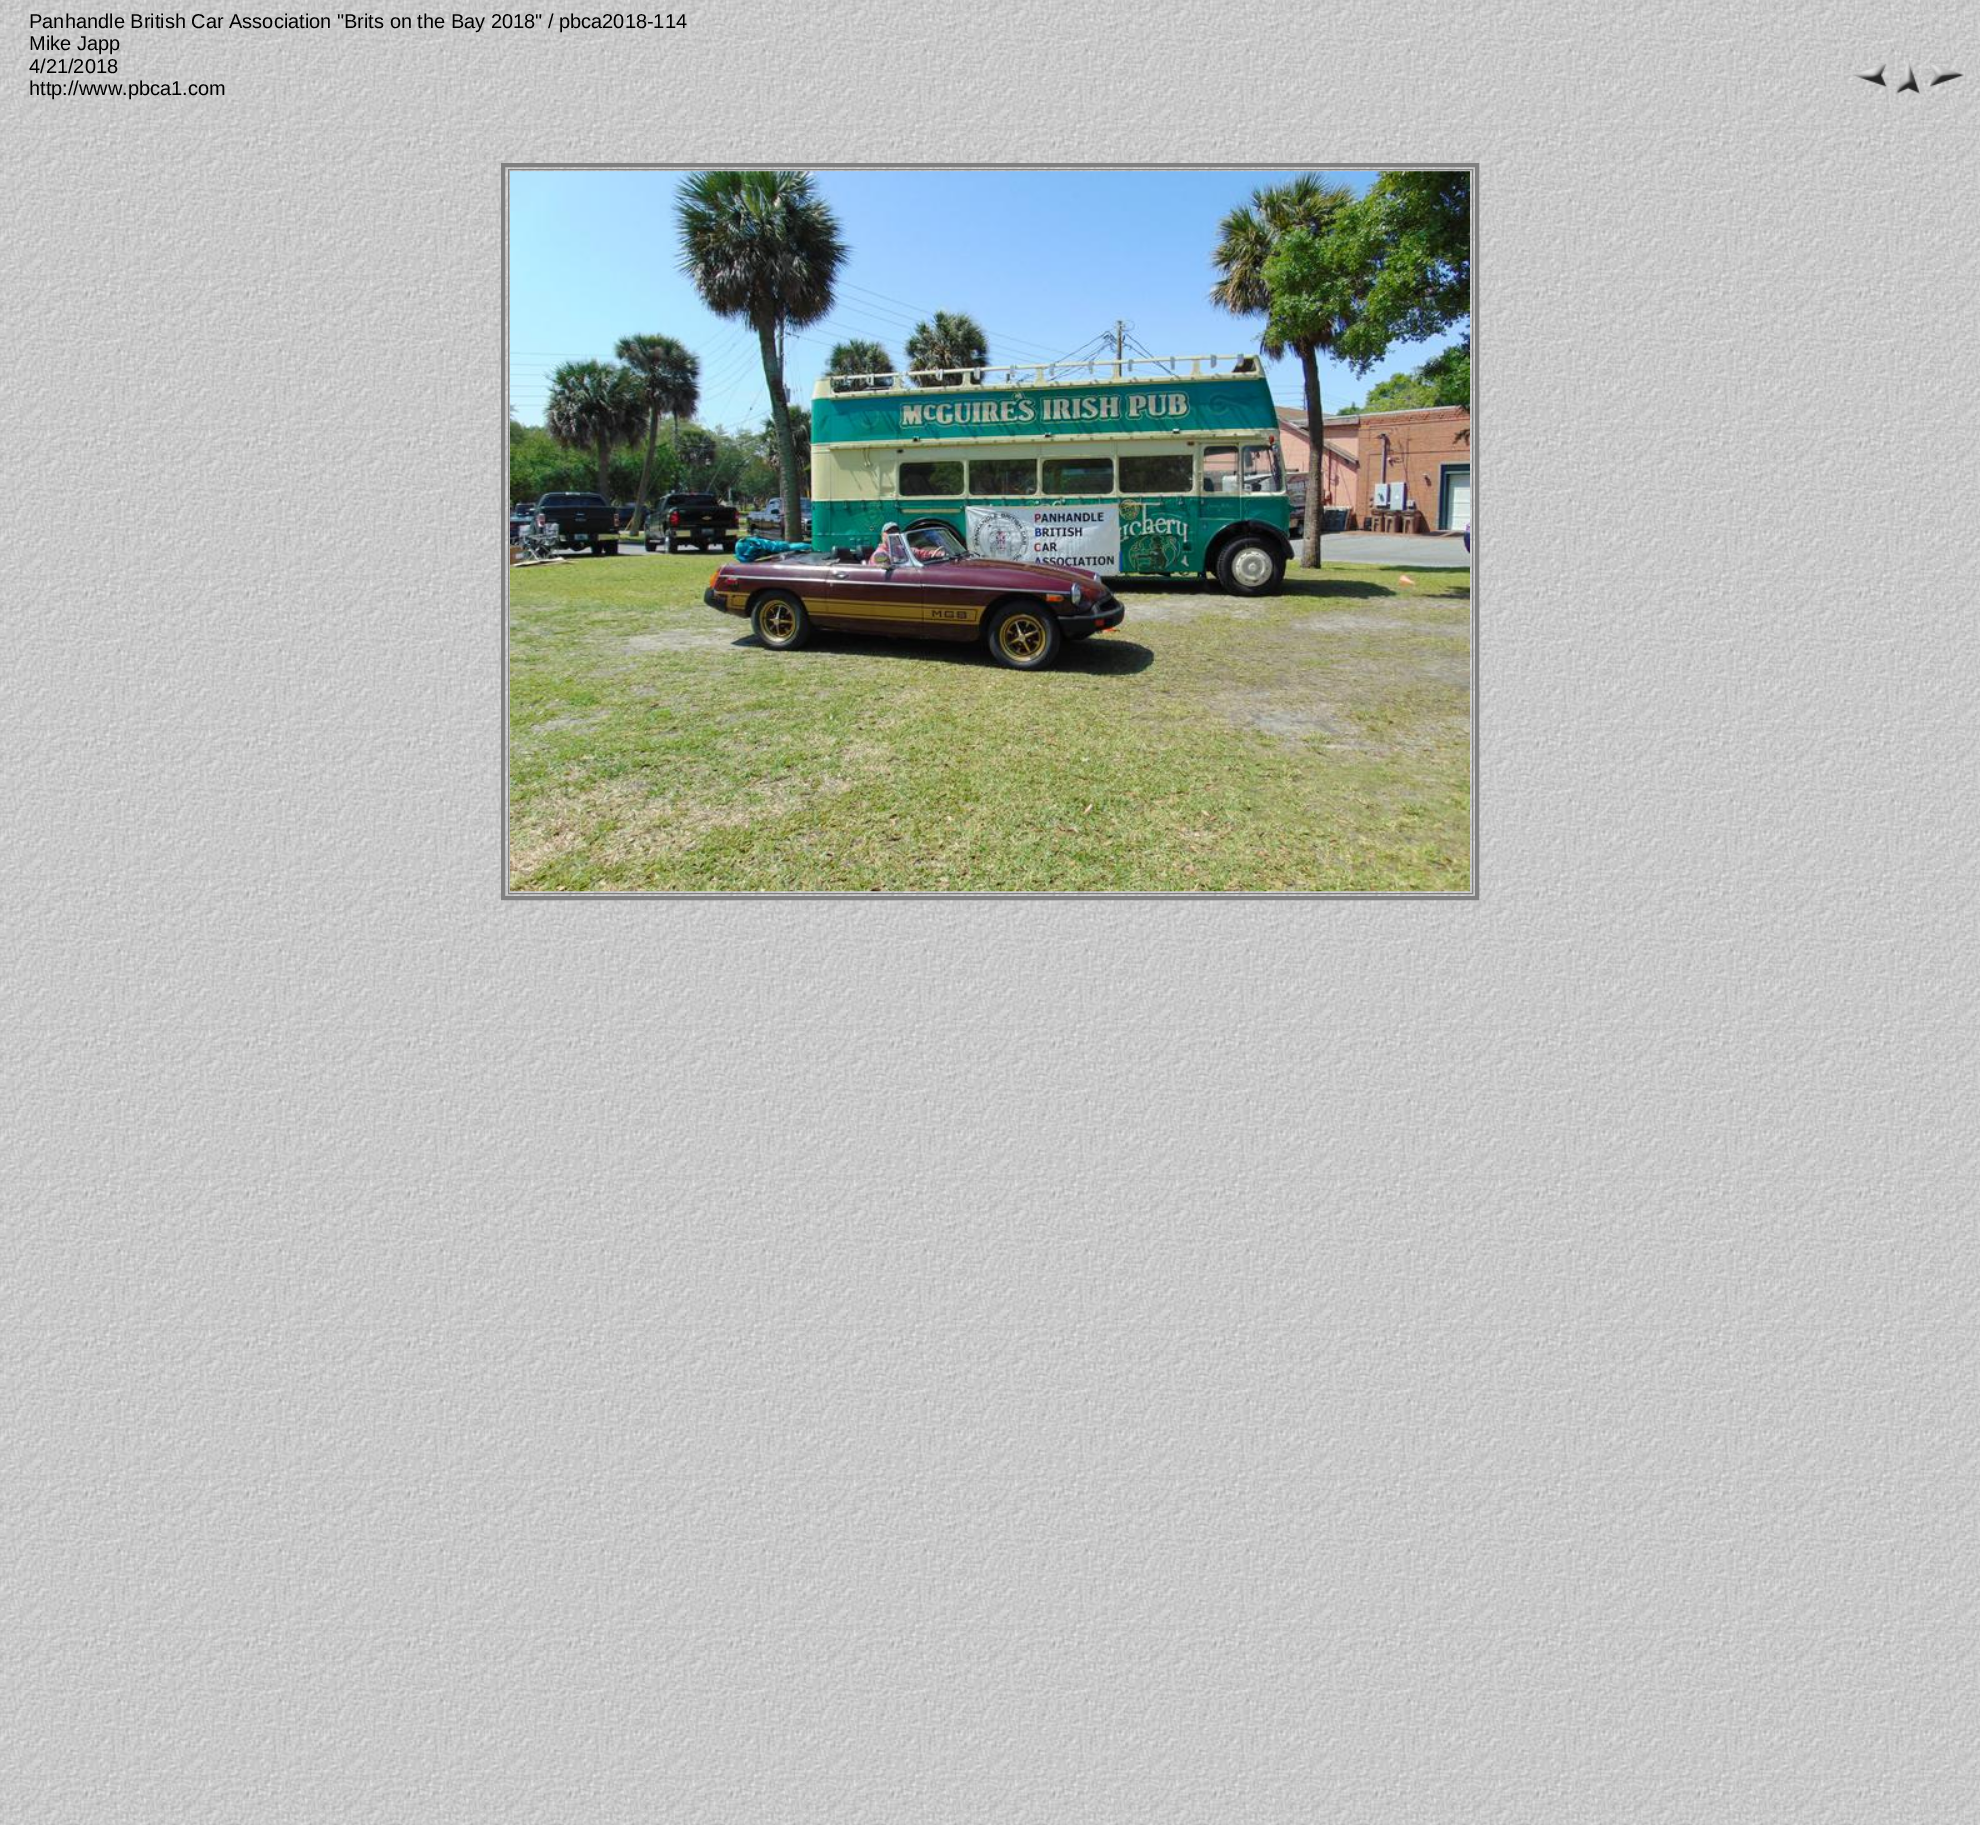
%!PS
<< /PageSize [1980 1825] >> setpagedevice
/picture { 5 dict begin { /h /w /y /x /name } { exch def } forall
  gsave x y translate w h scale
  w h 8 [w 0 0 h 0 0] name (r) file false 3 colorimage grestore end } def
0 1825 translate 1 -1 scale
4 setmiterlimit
1 setgray
0 0 1980 1825 rectfill
(img1.rgb) 0 0 1980 1825 picture
/LiberationSans-Regular [20 0 0 -20 0 0] selectfont
0 setgray
29 28 moveto (Panhandle British Car Association "Brits on the Bay 2018" / pbca2018-114) show
29 50 moveto (Mike Japp) show
29 73 moveto (4/21/2018) show
29 95 moveto (http://www.pbca1.com) show
(img2.rgb) 1852 63 35 24 picture
(img3.rgb) 1896 59 24 35 picture
(img4.rgb) 1929 64 35 23 picture
0.502 setgray
4 setlinewidth
503 165 974 733 rectstroke
1 setlinewidth
508.5 169.5 964 724 rectstroke
(img5.rgb) 510 171 960 721 picture
showpage
